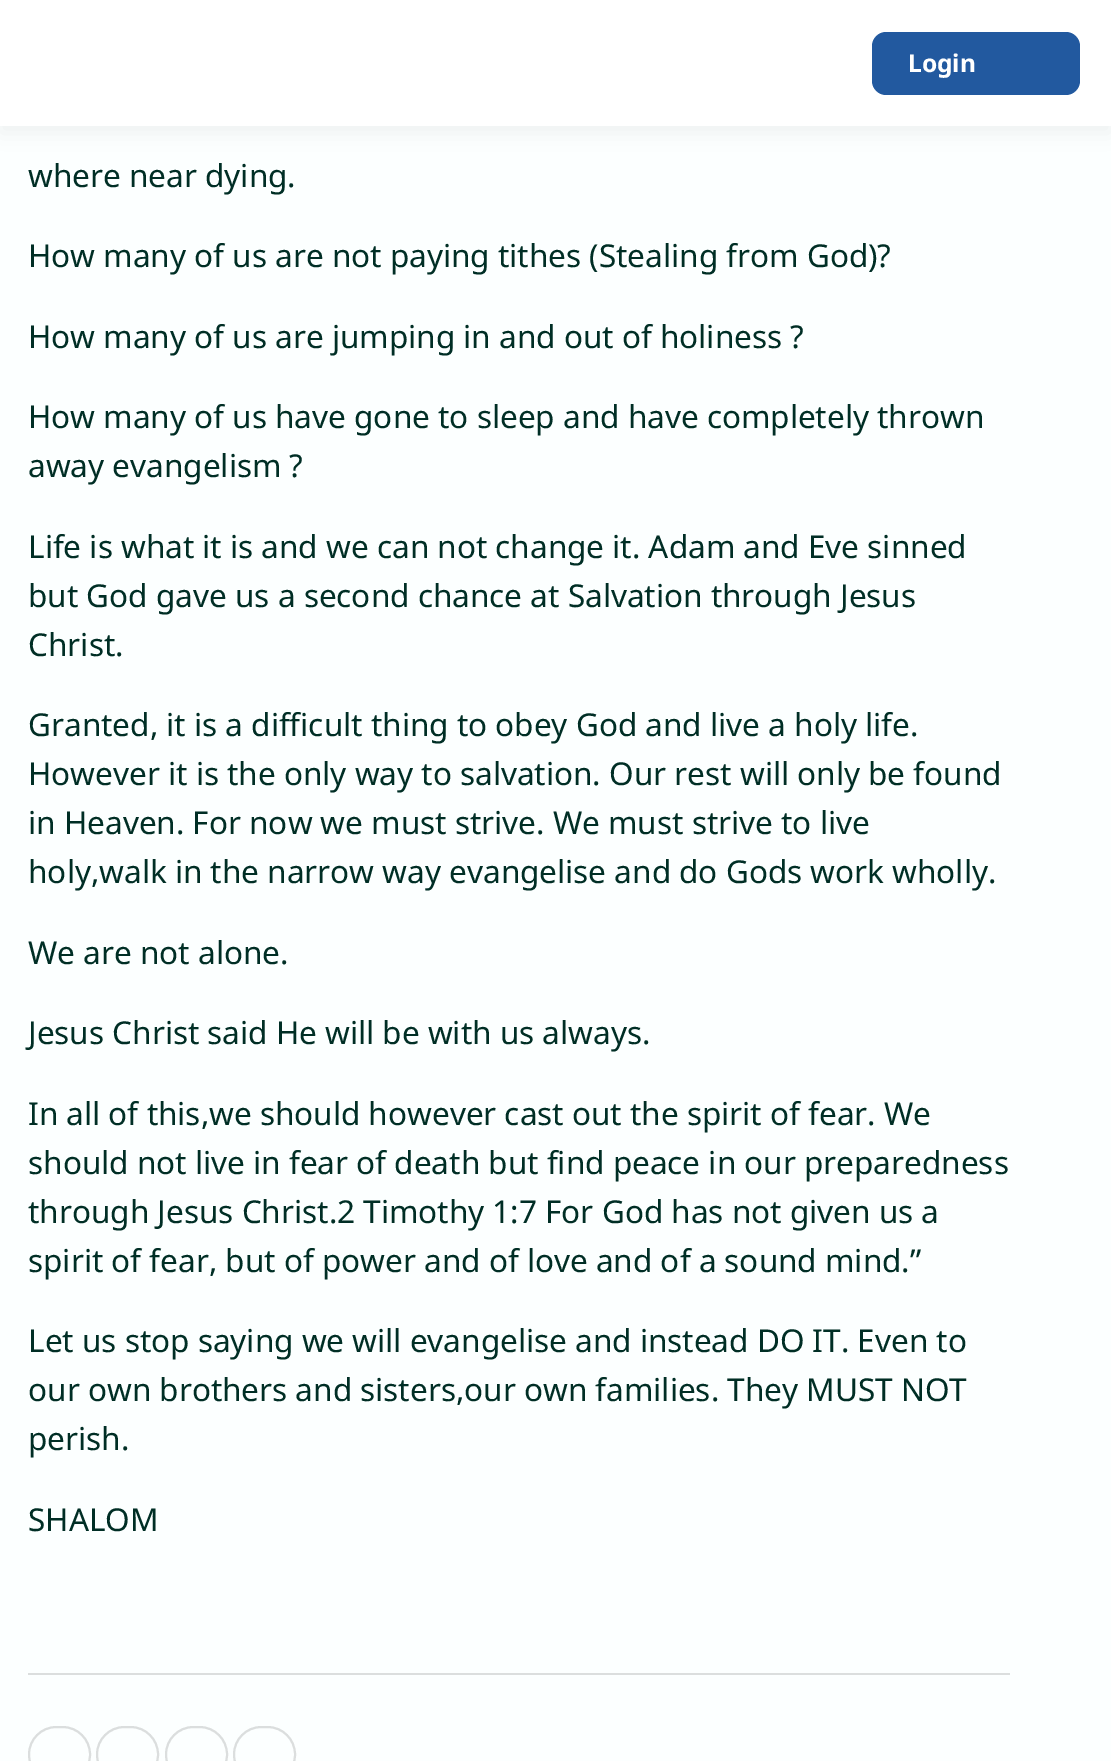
%!PS
<< /PageSize [1111 1761] /PageUsesTransparency true >> setpagedevice
/alpha { dup .setfillconstantalpha .setstrokeconstantalpha } def
/roundrect { 5 dict begin { /r /h /w /y /x } { exch def } forall
  x r add y moveto x w add y 2 copy h add r arct x w add y h add x 1 index r arct
  x y h add x y r arct x y 2 copy exch w add exch r arct closepath end } def
/shadow { 12 dict begin { /a /b /q /h /w /y /x } { exch def } forall gsave /was 0 def
  9 -2 -9 { dup b mul 4 div /e exch def 1 sub .425 mul 2.718 exch exp 1 add a .99 .min exch div /now exch def
    1 1 now sub 1 was sub div sub alpha /was now def
    w h .min e 2 mul add 0 gt { x e sub y e sub w e 2 mul add h e 2 mul add
      q e add b .6 mul add w h .min 2 div e add .min 0 .max roundrect fill } if } for grestore end } def
0 .pushpdf14devicefilter
0 1761 translate 1 -1 scale
4 setmiterlimit
0.988 1 1 setrgbcolor
0 0 1111 1761 rectfill
0 setgray
0 7 1111 126 0 10.5 0.05 shadow
1 setgray
0 0 1111 126 rectfill
0.133 0.349 0.624 setrgbcolor
newpath 886 32 moveto 1012 32 lineto 1012 95 lineto 886 95 lineto 878.5 95 872 88.5 872 81 curveto 872 46 lineto 872 38.5 878.5 32 886 32 curveto closepath fill
/NotoSans-Bold [24.5 0 0 -24.5 0 0] selectfont
1 setgray
908 72 moveto (Login) show
0.133 0.349 0.624 setrgbcolor
newpath 1012 32 moveto 1066 32 lineto 1073.5 32 1080 38.5 1080 46 curveto 1080 81 lineto 1080 88.5 1073.5 95 1066 95 curveto 1012 95 lineto closepath fill
/NotoSans-Regular [31.5 0 0 -31.5 0 0] selectfont
0 0.18 0.145 setrgbcolor
28 187 moveto (where near dying.) show
28 267 moveto (How many of us are not paying tithes \(Stealing from God\)?) show
28 348 moveto (How many of us are jumping in and out of holiness ?) show
28 428 moveto (How many of us have gone to sleep and have completely thrown) show
28 477 moveto (away evangelism ?) show
28 558 moveto (Life is what it is and we can not change it. Adam and Eve sinned) show
28 607 moveto (but God gave us a second chance at Salvation through Jesus) show
28 656 moveto (Christ.) show
28 736 moveto (Granted, it is a difficult thing to obey God and live a holy life.) show
28 785 moveto (However it is the only way to salvation. Our rest will only be found) show
28 834 moveto (in Heaven. For now we must strive. We must strive to live) show
28 883 moveto (holy,walk in the narrow way evangelise and do Gods work wholly.) show
28 964 moveto (We are not alone.) show
28 1044 moveto (Jesus Christ said He will be with us always.) show
28 1125 moveto (In all of this,we should however cast out the spirit of fear. We) show
28 1174 moveto (should not live in fear of death but find peace in our preparedness) show
28 1223 moveto (through Jesus Christ.2 Timothy 1:7 For God has not given us a) show
28 1272 moveto (spirit of fear, but of power and of love and of a sound mind.”) show
28 1352 moveto (Let us stop saying we will evangelise and instead DO IT. Even to) show
28 1401 moveto (our own brothers and sisters,our own families. They MUST NOT) show
28 1450 moveto (perish.) show
28 1531 moveto (SHALOM) show
0.859 0.871 0.871 setrgbcolor
28 1673 982 2 rectfill
2 setlinewidth
29 1727 61 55 27.5 roundrect stroke
97 1727 61 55 27.5 roundrect stroke
166 1727 61 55 27.5 roundrect stroke
234 1727 61 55 27.5 roundrect stroke
.poppdf14devicefilter showpage
